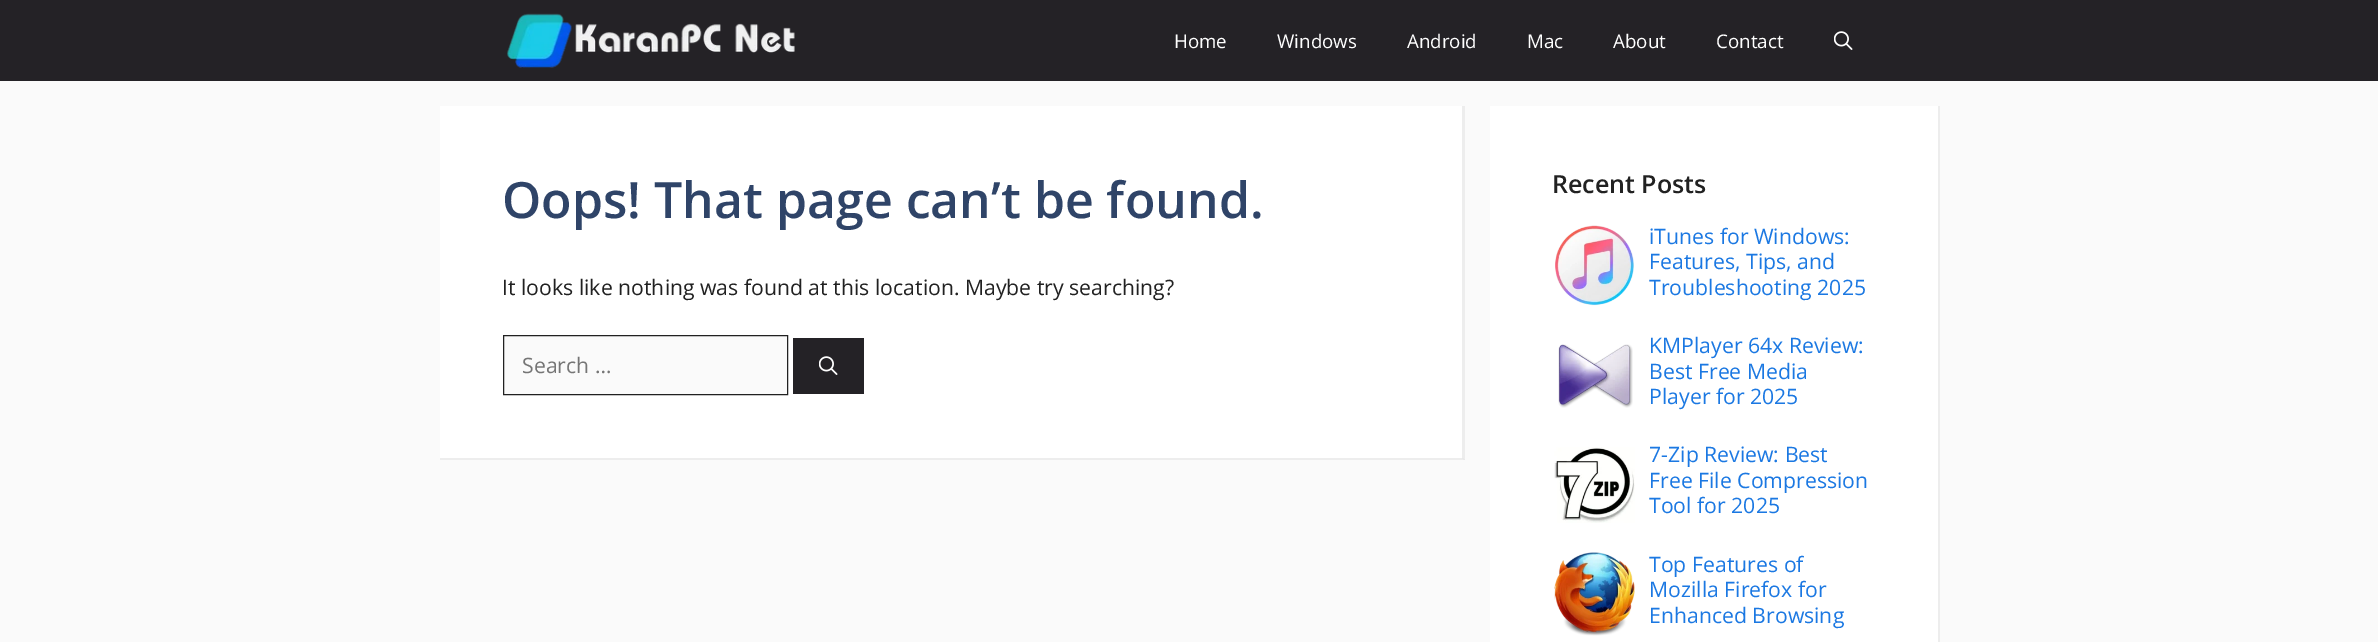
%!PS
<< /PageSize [2378 642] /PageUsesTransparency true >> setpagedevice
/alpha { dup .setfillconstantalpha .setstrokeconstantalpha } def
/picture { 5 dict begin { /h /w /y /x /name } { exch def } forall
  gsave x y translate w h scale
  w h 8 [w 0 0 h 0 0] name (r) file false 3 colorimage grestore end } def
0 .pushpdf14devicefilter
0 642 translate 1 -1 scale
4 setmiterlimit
0.98 setgray
0 0 2378 642 rectfill
0.141 0.133 0.149 setrgbcolor
0 0 2378 81 rectfill
(img1.rgb) 507 13 288 55 picture
/OpenSans-Regular [18.75 0 0 -18.75 0 0] selectfont
1 setgray
1174 48 moveto (Home) show
1277 48 moveto (Windows) show
1407 48 moveto (Android) show
1527 48 moveto (Mac) show
1613 48 moveto (About) show
1716 48 moveto (Contact) show
(img2.rgb) 1834 31 19 19 picture
440 106 1025 354 rectfill
0.929 setgray
newpath 1465 106 moveto 1465 460 lineto 1462 458 lineto 1462 106 lineto closepath fill
0.07 alpha
0 setgray
newpath 1465 460 moveto 440 460 lineto 440 458 lineto 1462 458 lineto closepath fill
/OpenSans-SemiBold [50 0 0 -50 0 0] selectfont
1 alpha
0.184 0.267 0.408 setrgbcolor
502 218 moveto (Oops! That page can’t be found.) show
/OpenSans-Regular [21.25 0 0 -21.25 0 0] selectfont
0.129 setgray
502 295 moveto (It looks like nothing was found at this location. Maybe try searching?) show
0.98 setgray
newpath 503.5 335.5 moveto 787.5 335.5 lineto 787.5 394.5 lineto 503.5 394.5 lineto closepath gsave fill grestore
0.129 setgray
stroke
0.459 setgray
522 373 moveto (Search …) show
0.141 0.133 0.149 setrgbcolor
793 338 71 56 rectfill
(img2.rgb) 819 356 19 19 picture
1 setgray
1490 106 448 536 rectfill
0.929 setgray
newpath 1940 106 moveto 1940 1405 lineto 1938 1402 lineto 1938 106 lineto closepath fill
/OpenSans-SemiBold [25 0 0 -25 0 0] selectfont
0.129 setgray
1552 193 moveto (Recent Posts) show
(img3.rgb) 1555 225 79 81 picture
/OpenSans-Regular [21.25 0 0 -21.25 0 0] selectfont
0.106 0.471 0.886 setrgbcolor
1649 244 moveto (iTunes for Windows:) show
1649 269 moveto (Features, Tips, and) show
1649 295 moveto (Troubleshooting 2025) show
(img4.rgb) 1558 344 75 64 picture
1649 353 moveto (KMPlayer 64x Review:) show
1649 379 moveto (Best Free Media) show
1649 404 moveto (Player for 2025) show
(img5.rgb) 1554 447 81 76 picture
1649 462 moveto (7-Zip Review: Best) show
1649 488 moveto (Free File Compression) show
1649 513 moveto (Tool for 2025) show
(img6.rgb) 1554 552 81 84 picture
1649 572 moveto (Top Features of) show
1649 597 moveto (Mozilla Firefox for) show
1649 623 moveto (Enhanced Browsing) show
.poppdf14devicefilter showpage
